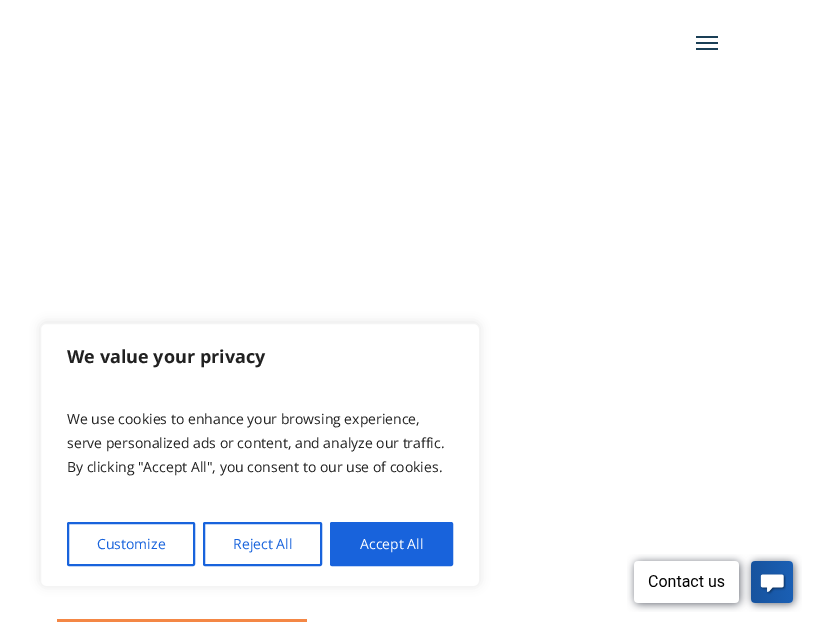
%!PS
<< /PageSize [817 627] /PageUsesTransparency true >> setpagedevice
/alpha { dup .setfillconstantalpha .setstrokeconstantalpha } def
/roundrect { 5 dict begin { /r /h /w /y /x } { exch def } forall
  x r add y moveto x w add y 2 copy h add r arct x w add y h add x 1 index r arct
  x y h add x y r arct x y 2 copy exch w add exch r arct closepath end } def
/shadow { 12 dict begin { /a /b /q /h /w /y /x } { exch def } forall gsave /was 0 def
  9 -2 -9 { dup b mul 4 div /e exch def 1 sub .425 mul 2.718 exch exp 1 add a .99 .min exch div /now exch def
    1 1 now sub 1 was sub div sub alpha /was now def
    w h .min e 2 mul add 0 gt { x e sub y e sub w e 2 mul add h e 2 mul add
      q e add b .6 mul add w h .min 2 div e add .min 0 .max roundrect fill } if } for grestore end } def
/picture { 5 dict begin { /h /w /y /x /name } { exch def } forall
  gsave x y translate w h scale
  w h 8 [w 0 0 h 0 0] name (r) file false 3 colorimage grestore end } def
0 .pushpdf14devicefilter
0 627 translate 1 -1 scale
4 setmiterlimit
1 setgray
0 0 817 627 rectfill
0.102 0.247 0.337 setrgbcolor
696 36 22 2 rectfill
696 48 22 2 rectfill
696 42 22 2 rectfill
0.675 0.671 0.671 setrgbcolor
40 322 440 264 6 5 0.3 shadow
1 setgray
40.5 323.5 439 263 5.5 roundrect gsave fill grestore
0.957 setgray
stroke
/OpenSans-Bold [18 0 0 -18 0 0] selectfont
0.129 setgray
67 363 moveto (We value your privacy) show
/OpenSans-Regular [14 0 0 -14 0 0] selectfont
67 424 moveto (We use cookies to enhance your browsing experience,) show
67 448 moveto (serve personalized ads or content, and analyze our traffic.) show
67 472 moveto (By clicking "Accept All", you consent to our use of cookies.) show
0.094 0.388 0.863 setrgbcolor
2 setlinewidth
68 523 126 42 1 roundrect stroke
97 549 moveto (Customize) show
204 523 117 42 1 roundrect stroke
233 549 moveto (Reject All) show
331 523 121 42 1 roundrect gsave fill grestore
stroke
1 setgray
360 549 moveto (Accept All) show
(img1.rgb) 627 554 175 58 picture
0.957 0.529 0.271 setrgbcolor
57 619 250 3 rectfill
.poppdf14devicefilter showpage
